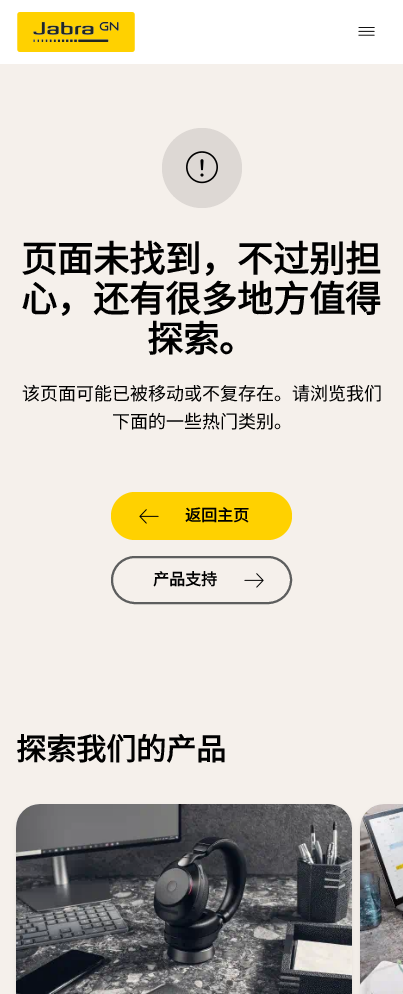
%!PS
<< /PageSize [403 994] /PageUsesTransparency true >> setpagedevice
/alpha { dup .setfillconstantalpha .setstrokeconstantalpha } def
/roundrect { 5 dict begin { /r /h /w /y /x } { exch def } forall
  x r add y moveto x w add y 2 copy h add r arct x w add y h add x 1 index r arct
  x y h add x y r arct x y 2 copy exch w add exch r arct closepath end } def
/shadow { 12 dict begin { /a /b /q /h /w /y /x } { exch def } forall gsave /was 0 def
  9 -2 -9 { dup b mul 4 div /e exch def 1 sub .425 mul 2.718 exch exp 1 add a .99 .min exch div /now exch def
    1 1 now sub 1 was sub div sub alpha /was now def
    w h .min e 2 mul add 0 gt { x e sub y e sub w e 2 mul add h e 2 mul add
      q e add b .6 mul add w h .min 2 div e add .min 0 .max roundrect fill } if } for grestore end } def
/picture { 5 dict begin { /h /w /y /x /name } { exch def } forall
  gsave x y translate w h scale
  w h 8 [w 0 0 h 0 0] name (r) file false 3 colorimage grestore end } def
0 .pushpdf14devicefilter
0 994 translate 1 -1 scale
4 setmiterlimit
1 setgray
0 0 403 994 rectfill
(img1.rgb) 17 12 118 40 picture
(img2.rgb) 358 27 17 9 picture
0.961 0.941 0.922 setrgbcolor
0 64 403 930 rectfill
0.867 0.847 0.831 setrgbcolor
newpath 202 168 40 0 360 arc closepath fill
(img3.rgb) 186 151 32 33 picture
/NotoSansCJKSC-Bold [36 0 0 -36 0 0] selectfont
0 setgray
21 272 moveto (页面未找到，不过别担) show
21 312 moveto (心，还有很多地方值得) show
147 352 moveto (探索。) show
/NotoSansCJKSC-Regular [18 0 0 -18 0 0] selectfont
22 400 moveto (该页面可能已被移动或不复存在。请浏览我们) show
112 428 moveto (下面的一些热门类别。) show
1 0.82 0 setrgbcolor
111 492 181 48 24 roundrect fill
(img4.rgb) 139 509 20 15 picture
/NotoSansCJKSC-Bold [16 0 0 -16 0 0] selectfont
0 setgray
185 521 moveto (返回主页) show
0.365 0.369 0.369 setrgbcolor
2 setlinewidth
112 557 179 46 23 roundrect stroke
0 setgray
153 585 moveto (产品支持) show
(img5.rgb) 244 573 20 15 picture
/NotoSansCJKSC-Bold [30 0 0 -30 0 0] selectfont
16 760 moveto (探索我们的产品) show
17 809 334 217 23 3 0.1 shadow
361 809 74 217 23 3 0.1 shadow
(img6.rgb) 16 804 336 190 picture
(img7.rgb) 360 804 43 190 picture
.poppdf14devicefilter showpage
